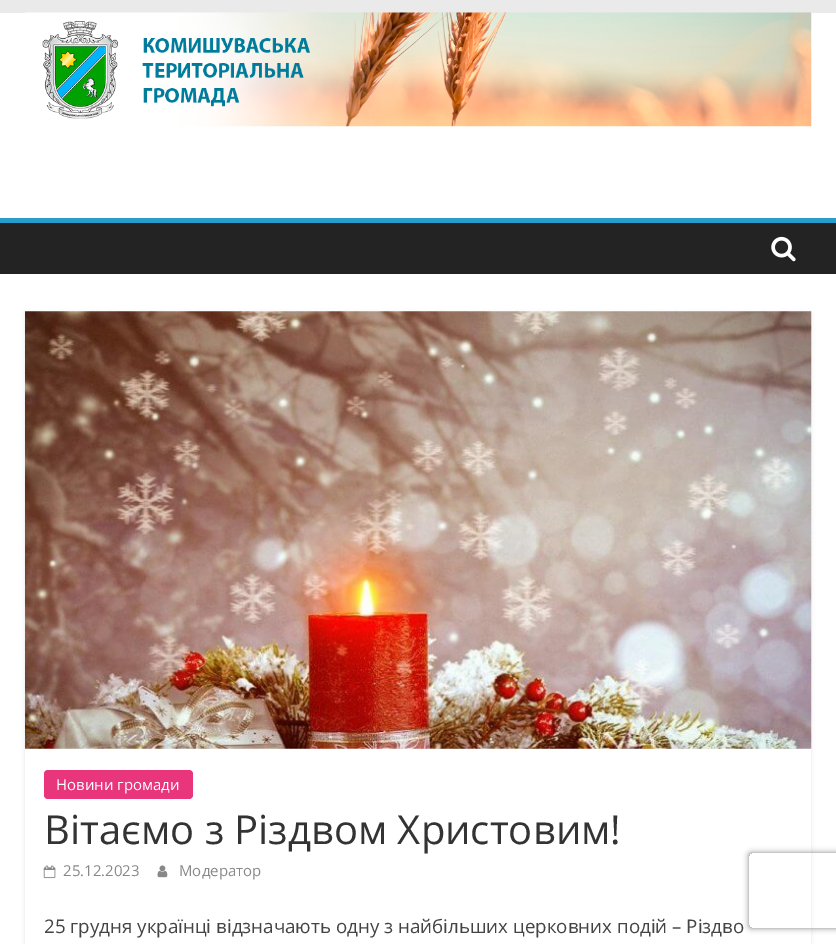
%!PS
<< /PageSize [836 944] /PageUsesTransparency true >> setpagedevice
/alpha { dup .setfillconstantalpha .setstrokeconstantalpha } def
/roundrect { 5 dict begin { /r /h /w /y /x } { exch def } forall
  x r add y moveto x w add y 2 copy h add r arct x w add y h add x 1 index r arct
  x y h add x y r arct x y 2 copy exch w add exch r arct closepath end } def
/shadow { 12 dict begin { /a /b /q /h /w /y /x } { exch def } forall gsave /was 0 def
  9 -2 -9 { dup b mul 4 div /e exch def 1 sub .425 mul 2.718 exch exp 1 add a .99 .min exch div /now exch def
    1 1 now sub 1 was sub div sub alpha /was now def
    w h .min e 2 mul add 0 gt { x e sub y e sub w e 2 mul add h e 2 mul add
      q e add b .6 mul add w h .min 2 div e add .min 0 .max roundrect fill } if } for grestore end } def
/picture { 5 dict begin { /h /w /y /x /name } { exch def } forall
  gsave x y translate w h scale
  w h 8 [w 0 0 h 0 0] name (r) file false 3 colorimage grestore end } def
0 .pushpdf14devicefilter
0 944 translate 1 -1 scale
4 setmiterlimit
0.918 setgray
0 0 836 944 rectfill
1 setgray
0 13 836 205 rectfill
(img1.rgb) 25 12 787 115 picture
0.137 setgray
0 223 836 51 rectfill
0.157 0.616 0.8 setrgbcolor
0 218 836 5 rectfill
(img2.rgb) 771 236 25 26 picture
1 setgray
0 274 836 670 rectfill
gsave
newpath 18 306 moveto 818 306 lineto 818 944 lineto 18 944 lineto closepath 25 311 moveto 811 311 lineto 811 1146 lineto 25 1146 lineto closepath eoclip newpath
0 setgray
25 313 786 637 0 2 0.1 shadow
grestore
(img3.rgb) 25 311 787 438 picture
0.91 0.208 0.486 setrgbcolor
44 770 149 29 4 roundrect fill
/OpenSans-Regular [15 0 0 -15 0 0] selectfont
1 setgray
56 790 moveto (Новини громади) show
/OpenSans-Regular [40 0 0 -40 0 0] selectfont
0.2 setgray
44 844 moveto (Вітаємо з Різдвом Христовим!) show
(img4.rgb) 43 865 13 14 picture
/OpenSans-Regular [15 0 0 -15 0 0] selectfont
0.533 setgray
63 876 moveto (25.12.2023) show
(img5.rgb) 157 865 11 13 picture
179 876 moveto (Модератор) show
/OpenSans-Regular [18.75 0 0 -18.75 0 0] selectfont
0.267 setgray
44 933 moveto (25 грудня українці відзначають одну з найбільших церковних подій – Різдво) show
gsave
newpath 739 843 moveto 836 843 lineto 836 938 lineto 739 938 lineto closepath 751.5 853 moveto 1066.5 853 lineto 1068 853 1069 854 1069 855.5 curveto 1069 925.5 lineto 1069 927 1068 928 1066.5 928 curveto 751.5 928 lineto 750 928 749 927 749 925.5 curveto 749 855.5 lineto 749 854 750 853 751.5 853 curveto closepath eoclip newpath
0.502 setgray
749 853 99 75 2.5 3 1 shadow
grestore
.poppdf14devicefilter showpage
